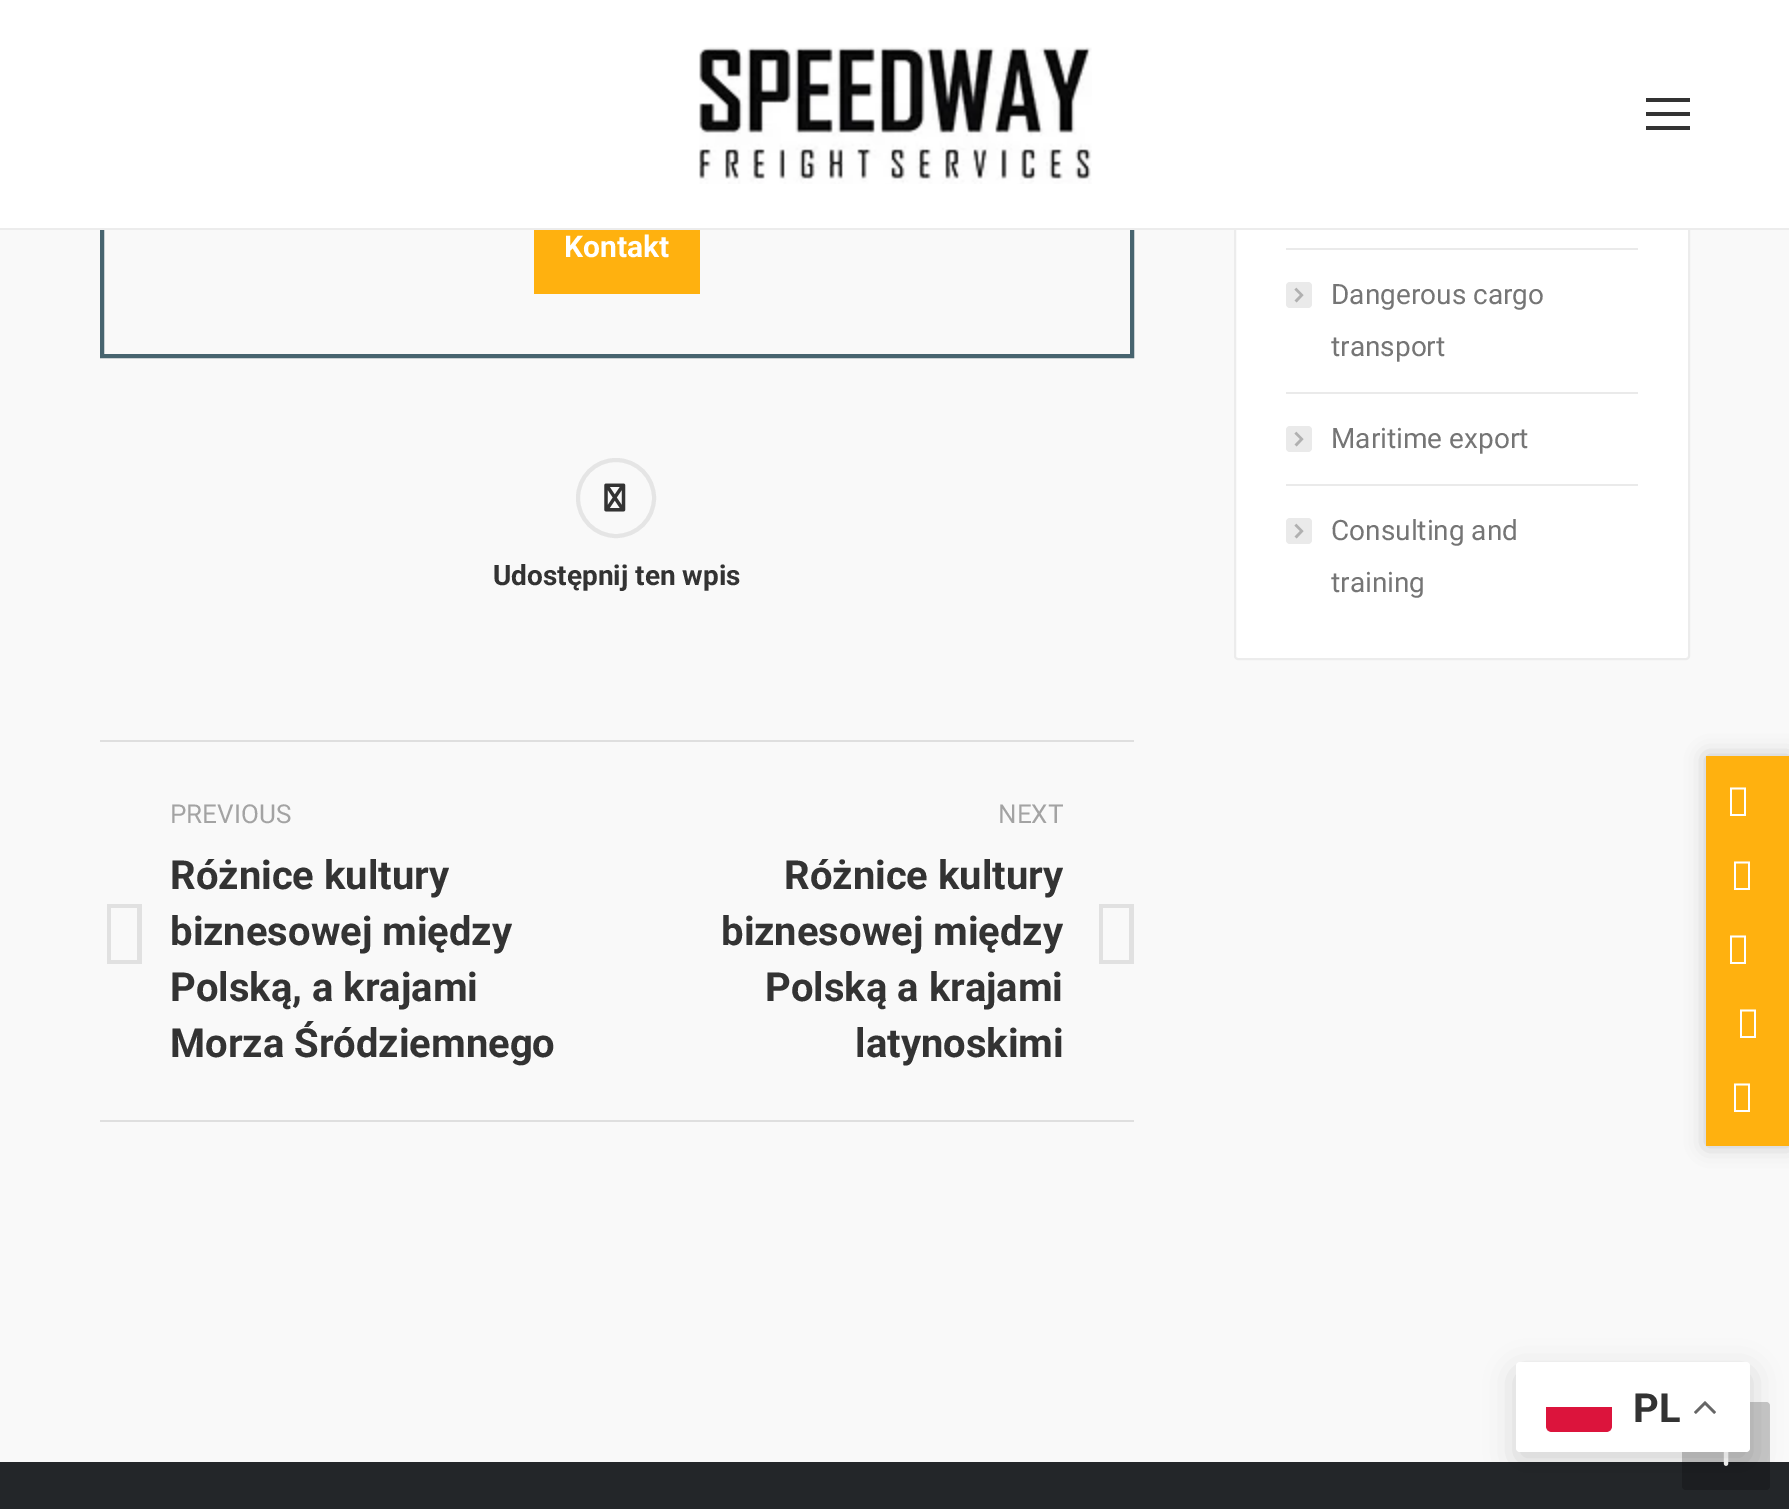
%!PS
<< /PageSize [1789 1509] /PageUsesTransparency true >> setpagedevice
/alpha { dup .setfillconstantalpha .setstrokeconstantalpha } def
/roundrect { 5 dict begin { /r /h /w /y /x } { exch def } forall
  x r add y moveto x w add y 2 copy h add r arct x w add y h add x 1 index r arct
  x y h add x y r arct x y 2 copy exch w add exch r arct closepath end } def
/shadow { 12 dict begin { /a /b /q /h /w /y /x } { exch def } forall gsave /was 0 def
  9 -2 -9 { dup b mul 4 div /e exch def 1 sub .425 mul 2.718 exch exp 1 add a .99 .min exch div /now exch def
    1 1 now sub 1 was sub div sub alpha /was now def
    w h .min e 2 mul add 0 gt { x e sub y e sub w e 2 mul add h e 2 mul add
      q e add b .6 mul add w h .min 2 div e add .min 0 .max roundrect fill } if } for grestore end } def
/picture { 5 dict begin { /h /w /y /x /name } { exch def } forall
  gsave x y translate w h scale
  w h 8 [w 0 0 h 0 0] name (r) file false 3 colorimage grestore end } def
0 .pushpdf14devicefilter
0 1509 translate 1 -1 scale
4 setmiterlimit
0.137 0.149 0.161 setrgbcolor
0 0 1789 1509 rectfill
0.976 setgray
0 230 1789 1232 rectfill
0.278 0.392 0.435 setrgbcolor
4 setlinewidth
102 32 1030 324 rectstroke
1 setgray
1235 -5 454 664 3 roundrect gsave fill grestore
0.925 setgray
2 setlinewidth
stroke
1 setgray
0 0 1789 228 rectfill
0.925 setgray
0 228 1789 2 rectfill
(img1.rgb) 699 47 393 137 picture
0.2 setgray
1646 112 44 4 rectfill
1646 98 44 4 rectfill
1646 126 44 4 rectfill
1 0.694 0.059 setrgbcolor
534 230 166 64 rectfill
/Roboto-Bold [30 0 0 -30 0 0] selectfont
1 setgray
564 257 moveto (Kontakt) show
0.898 setgray
4 setlinewidth
newpath 616 498 38 0 360 arc closepath stroke
(img2.rgb) 604 483 22 29 picture
/Roboto-Bold [28 0 0 -28 0 0] selectfont
0.2 setgray
493 585 moveto (Udostępnij ten wpis) show
0.875 setgray
100 740 1034 2 rectfill
100 1120 1034 2 rectfill
/Roboto-Regular [26 0 0 -26 0 0] selectfont
0.639 setgray
170 823 moveto (PREVIOUS) show
0.882 setgray
newpath 107 964 moveto 107 904 lineto 142 904 lineto 142 964 lineto closepath 111 960 moveto 137 960 lineto 137 908 lineto 111 908 lineto closepath fill
/Roboto-Bold [40 0 0 -40 0 0] selectfont
0.2 setgray
170 889 moveto (Różnice kultury) show
170 945 moveto (biznesowej między) show
170 1001 moveto (Polską, a krajami) show
170 1057 moveto (Morza Śródziemnego) show
/Roboto-Regular [26 0 0 -26 0 0] selectfont
0.639 setgray
998 823 moveto (NEXT) show
/Roboto-Bold [40 0 0 -40 0 0] selectfont
0.2 setgray
784 889 moveto (Różnice kultury) show
721 945 moveto (biznesowej między) show
765 1001 moveto (Polską a krajami) show
855 1057 moveto (latynoskimi) show
0.882 setgray
newpath 1099 964 moveto 1099 904 lineto 1134 904 lineto 1134 964 lineto closepath 1103 960 moveto 1129 960 lineto 1129 908 lineto 1103 908 lineto closepath fill
0.918 setgray
1286 248 352 2 rectfill
(img3.rgb) 1294 287 10 16 picture
0.15 alpha
0.459 setgray
1286 282 26 26 4 roundrect fill
/Roboto-Regular [28 0 0 -28 0 0] selectfont
1 alpha
1331 304 moveto (Dangerous cargo) show
1331 356 moveto (transport) show
0.918 setgray
1286 392 352 2 rectfill
(img3.rgb) 1294 431 10 16 picture
0.15 alpha
0.459 setgray
1286 426 26 26 4 roundrect fill
1 alpha
1331 448 moveto (Maritime export) show
0.918 setgray
1286 484 352 2 rectfill
(img3.rgb) 1294 523 10 16 picture
0.15 alpha
0.459 setgray
1286 518 26 26 4 roundrect fill
1 alpha
1331 540 moveto (Consulting and) show
1331 592 moveto (training) show
0.2 alpha
0 setgray
1682 1402 88 88 4 roundrect fill
1 alpha
(img4.rgb) 1723 1452 6 14 picture
1706 756 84 390 0 10 0.2 shadow
1 0.694 0.059 setrgbcolor
1706 756 83 390 rectfill
1 setgray
newpath 1730 816 moveto 1730 787.5 lineto 1746 787.5 lineto 1746 816 lineto closepath 1732 814 moveto 1744 814 lineto 1744 789.5 lineto 1732 789.5 lineto closepath fill
newpath 1734 890 moveto 1734 861.5 lineto 1750 861.5 lineto 1750 890 lineto closepath 1736 888 moveto 1748 888 lineto 1748 863.5 lineto 1736 863.5 lineto closepath fill
newpath 1730 964 moveto 1730 935.5 lineto 1746 935.5 lineto 1746 964 lineto closepath 1732 962 moveto 1744 962 lineto 1744 937.5 lineto 1732 937.5 lineto closepath fill
newpath 1740 1038 moveto 1740 1009.5 lineto 1756 1009.5 lineto 1756 1038 lineto closepath 1742 1036 moveto 1754 1036 lineto 1754 1011.5 lineto 1742 1011.5 lineto closepath fill
newpath 1734 1112 moveto 1734 1083.5 lineto 1750 1083.5 lineto 1750 1112 lineto closepath 1736 1110 moveto 1748 1110 lineto 1748 1085.5 lineto 1736 1085.5 lineto closepath fill
0 setgray
1516 1372 234 90 4 15 0.15 shadow
1 setgray
1516 1362 234 90 4 roundrect fill
0.863 0.078 0.235 setrgbcolor
newpath 1546 1407 moveto 1612 1407 lineto 1612 1426 lineto 1612 1429.5 1609.5 1432 1606 1432 curveto 1552 1432 lineto 1548.5 1432 1546 1429.5 1546 1426 curveto closepath fill
/Roboto-Bold [40 0 0 -40 0 0] selectfont
0.2 setgray
1633 1422 moveto (PL) show
(img5.rgb) 1694 1401 22 13 picture
.poppdf14devicefilter showpage
